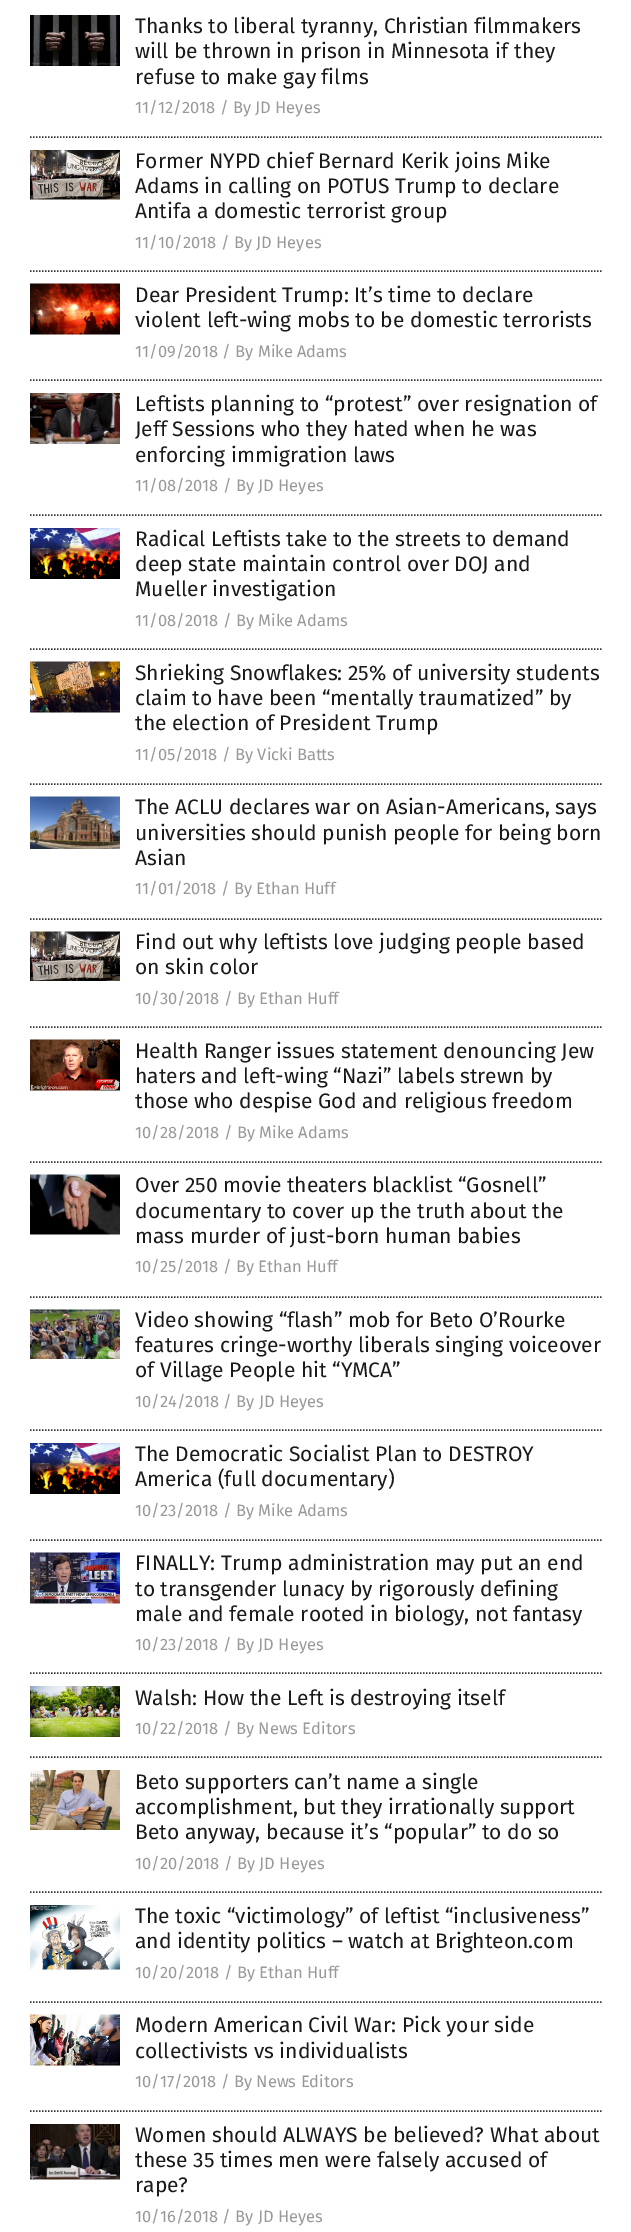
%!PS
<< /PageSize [631 2232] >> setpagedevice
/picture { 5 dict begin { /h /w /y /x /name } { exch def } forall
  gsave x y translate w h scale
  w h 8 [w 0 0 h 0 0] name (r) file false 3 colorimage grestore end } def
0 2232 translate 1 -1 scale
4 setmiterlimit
1 setgray
0 0 631 2232 rectfill
0.204 setgray
1.5 setlinewidth
[1.5 1.5] 0 setdash
newpath 30 137 moveto 601.5 137 lineto stroke
(img1.rgb) 30 15 90 51 picture
/FiraSans-Regular [21 0 0 -21 0 0] selectfont
0.102 setgray
135 33 moveto (Thanks to liberal tyranny, Christian filmmakers) show
135 58 moveto (will be thrown in prison in Minnesota if they) show
135 84 moveto (refuse to make gay films) show
/FiraSans-Regular [16.5 0 0 -16.5 0 0] selectfont
0.6 setgray
135 113 moveto (11/12/2018 / By JD Heyes) show
0.204 setgray
newpath 30 271 moveto 601.5 271 lineto stroke
(img2.rgb) 30 150 90 50 picture
/FiraSans-Regular [21 0 0 -21 0 0] selectfont
0.102 setgray
135 168 moveto (Former NYPD chief Bernard Kerik joins Mike) show
135 193 moveto (Adams in calling on POTUS Trump to declare) show
135 218 moveto (Antifa a domestic terrorist group) show
/FiraSans-Regular [16.5 0 0 -16.5 0 0] selectfont
0.6 setgray
135 248 moveto (11/10/2018 / By JD Heyes) show
0.204 setgray
newpath 30 380 moveto 601.5 380 lineto stroke
(img3.rgb) 30 283 90 52 picture
/FiraSans-Regular [21 0 0 -21 0 0] selectfont
0.102 setgray
135 302 moveto (Dear President Trump: It’s time to declare) show
135 327 moveto (violent left-wing mobs to be domestic terrorists) show
/FiraSans-Regular [16.5 0 0 -16.5 0 0] selectfont
0.6 setgray
135 357 moveto (11/09/2018 / By Mike Adams) show
0.204 setgray
newpath 30 515 moveto 601.5 515 lineto stroke
(img4.rgb) 30 393 90 51 picture
/FiraSans-Regular [21 0 0 -21 0 0] selectfont
0.102 setgray
135 411 moveto (Leftists planning to “protest” over resignation of) show
135 436 moveto (Jeff Sessions who they hated when he was) show
135 462 moveto (enforcing immigration laws) show
/FiraSans-Regular [16.5 0 0 -16.5 0 0] selectfont
0.6 setgray
135 491 moveto (11/08/2018 / By JD Heyes) show
0.204 setgray
newpath 30 649 moveto 601.5 649 lineto stroke
(img5.rgb) 30 528 90 51 picture
/FiraSans-Regular [21 0 0 -21 0 0] selectfont
0.102 setgray
135 546 moveto (Radical Leftists take to the streets to demand) show
135 571 moveto (deep state maintain control over DOJ and) show
135 596 moveto (Mueller investigation) show
/FiraSans-Regular [16.5 0 0 -16.5 0 0] selectfont
0.6 setgray
135 626 moveto (11/08/2018 / By Mike Adams) show
0.204 setgray
newpath 30 784 moveto 601.5 784 lineto stroke
(img6.rgb) 30 661 90 52 picture
/FiraSans-Regular [21 0 0 -21 0 0] selectfont
0.102 setgray
135 680 moveto (Shrieking Snowflakes: 25% of university students) show
135 705 moveto (claim to have been “mentally traumatized” by) show
135 730 moveto (the election of President Trump) show
/FiraSans-Regular [16.5 0 0 -16.5 0 0] selectfont
0.6 setgray
135 760 moveto (11/05/2018 / By Vicki Batts) show
0.204 setgray
newpath 30 919 moveto 601.5 919 lineto stroke
(img7.rgb) 30 796 90 53 picture
/FiraSans-Regular [21 0 0 -21 0 0] selectfont
0.102 setgray
135 814 moveto (The ACLU declares war on Asian-Americans, says) show
135 840 moveto (universities should punish people for being born) show
135 865 moveto (Asian) show
/FiraSans-Regular [16.5 0 0 -16.5 0 0] selectfont
0.6 setgray
135 894 moveto (11/01/2018 / By Ethan Huff) show
0.204 setgray
newpath 30 1027 moveto 601.5 1027 lineto stroke
(img8.rgb) 30 931 90 50 picture
/FiraSans-Regular [21 0 0 -21 0 0] selectfont
0.102 setgray
135 949 moveto (Find out why leftists love judging people based) show
135 974 moveto (on skin color) show
/FiraSans-Regular [16.5 0 0 -16.5 0 0] selectfont
0.6 setgray
135 1004 moveto (10/30/2018 / By Ethan Huff) show
0.204 setgray
newpath 30 1162 moveto 601.5 1162 lineto stroke
(img9.rgb) 30 1039 90 52 picture
/FiraSans-Regular [21 0 0 -21 0 0] selectfont
0.102 setgray
135 1058 moveto (Health Ranger issues statement denouncing Jew) show
135 1083 moveto (haters and left-wing “Nazi” labels strewn by) show
135 1108 moveto (those who despise God and religious freedom) show
/FiraSans-Regular [16.5 0 0 -16.5 0 0] selectfont
0.6 setgray
135 1138 moveto (10/28/2018 / By Mike Adams) show
0.204 setgray
newpath 30 1297 moveto 601.5 1297 lineto stroke
(img10.rgb) 30 1174 90 61 picture
/FiraSans-Regular [21 0 0 -21 0 0] selectfont
0.102 setgray
135 1192 moveto (Over 250 movie theaters blacklist “Gosnell”) show
135 1218 moveto (documentary to cover up the truth about the) show
135 1243 moveto (mass murder of just-born human babies) show
/FiraSans-Regular [16.5 0 0 -16.5 0 0] selectfont
0.6 setgray
135 1272 moveto (10/25/2018 / By Ethan Huff) show
0.204 setgray
newpath 30 1430 moveto 601.5 1430 lineto stroke
(img11.rgb) 30 1309 90 50 picture
/FiraSans-Regular [21 0 0 -21 0 0] selectfont
0.102 setgray
135 1327 moveto (Video showing “flash” mob for Beto O’Rourke) show
135 1352 moveto (features cringe-worthy liberals singing voiceover) show
135 1377 moveto (of Village People hit “YMCA”) show
/FiraSans-Regular [16.5 0 0 -16.5 0 0] selectfont
0.6 setgray
135 1407 moveto (10/24/2018 / By JD Heyes) show
0.204 setgray
newpath 30 1540 moveto 601.5 1540 lineto stroke
(img5.rgb) 30 1443 90 51 picture
/FiraSans-Regular [21 0 0 -21 0 0] selectfont
0.102 setgray
135 1461 moveto (The Democratic Socialist Plan to DESTROY) show
135 1486 moveto (America \(full documentary\)) show
/FiraSans-Regular [16.5 0 0 -16.5 0 0] selectfont
0.6 setgray
135 1516 moveto (10/23/2018 / By Mike Adams) show
0.204 setgray
newpath 30 1673 moveto 601.5 1673 lineto stroke
(img12.rgb) 30 1552 90 52 picture
/FiraSans-Regular [21 0 0 -21 0 0] selectfont
0.102 setgray
135 1570 moveto (FINALLY: Trump administration may put an end) show
135 1596 moveto (to transgender lunacy by rigorously defining) show
135 1621 moveto (male and female rooted in biology, not fantasy) show
/FiraSans-Regular [16.5 0 0 -16.5 0 0] selectfont
0.6 setgray
135 1650 moveto (10/23/2018 / By JD Heyes) show
0.204 setgray
newpath 30 1757 moveto 601.5 1757 lineto stroke
(img13.rgb) 30 1686 90 51 picture
/FiraSans-Regular [21 0 0 -21 0 0] selectfont
0.102 setgray
135 1705 moveto (Walsh: How the Left is destroying itself) show
/FiraSans-Regular [16.5 0 0 -16.5 0 0] selectfont
0.6 setgray
135 1734 moveto (10/22/2018 / By News Editors) show
0.204 setgray
newpath 30 1892 moveto 601.5 1892 lineto stroke
(img14.rgb) 30 1770 90 60 picture
/FiraSans-Regular [21 0 0 -21 0 0] selectfont
0.102 setgray
135 1789 moveto (Beto supporters can’t name a single) show
135 1814 moveto (accomplishment, but they irrationally support) show
135 1839 moveto (Beto anyway, because it’s “popular” to do so) show
/FiraSans-Regular [16.5 0 0 -16.5 0 0] selectfont
0.6 setgray
135 1869 moveto (10/20/2018 / By JD Heyes) show
0.204 setgray
newpath 30 2002 moveto 601.5 2002 lineto stroke
(img15.rgb) 30 1905 90 65 picture
/FiraSans-Regular [21 0 0 -21 0 0] selectfont
0.102 setgray
135 1923 moveto (The toxic “victimology” of leftist “inclusiveness”) show
135 1948 moveto (and identity politics – watch at Brighteon.com) show
/FiraSans-Regular [16.5 0 0 -16.5 0 0] selectfont
0.6 setgray
135 1978 moveto (10/20/2018 / By Ethan Huff) show
0.204 setgray
newpath 30 2111 moveto 601.5 2111 lineto stroke
(img16.rgb) 30 2014 90 52 picture
/FiraSans-Regular [21 0 0 -21 0 0] selectfont
0.102 setgray
135 2032 moveto (Modern American Civil War: Pick your side) show
135 2058 moveto (collectivists vs individualists) show
/FiraSans-Regular [16.5 0 0 -16.5 0 0] selectfont
0.6 setgray
135 2087 moveto (10/17/2018 / By News Editors) show
(img17.rgb) 30 2124 90 56 picture
/FiraSans-Regular [21 0 0 -21 0 0] selectfont
0.102 setgray
135 2142 moveto (Women should ALWAYS be believed? What about) show
135 2167 moveto (these 35 times men were falsely accused of) show
135 2192 moveto (rape?) show
/FiraSans-Regular [16.5 0 0 -16.5 0 0] selectfont
0.6 setgray
135 2222 moveto (10/16/2018 / By JD Heyes) show
showpage
